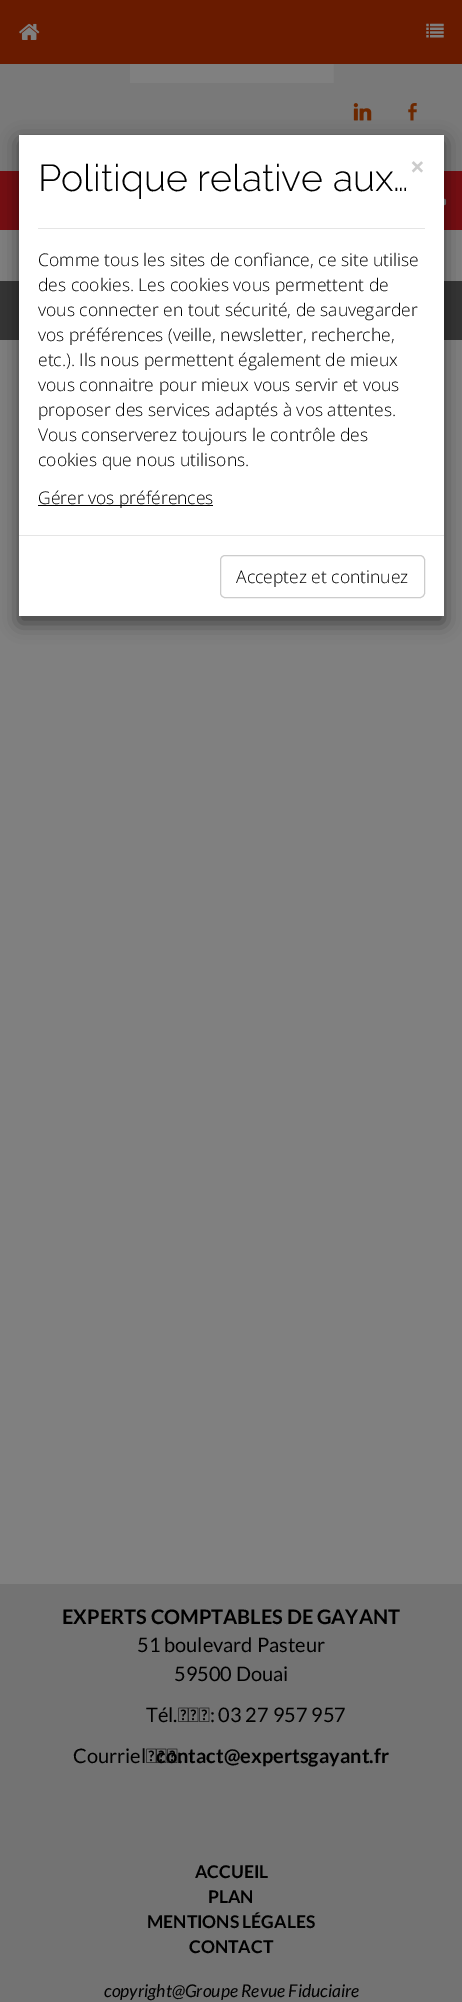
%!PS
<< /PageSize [462 2002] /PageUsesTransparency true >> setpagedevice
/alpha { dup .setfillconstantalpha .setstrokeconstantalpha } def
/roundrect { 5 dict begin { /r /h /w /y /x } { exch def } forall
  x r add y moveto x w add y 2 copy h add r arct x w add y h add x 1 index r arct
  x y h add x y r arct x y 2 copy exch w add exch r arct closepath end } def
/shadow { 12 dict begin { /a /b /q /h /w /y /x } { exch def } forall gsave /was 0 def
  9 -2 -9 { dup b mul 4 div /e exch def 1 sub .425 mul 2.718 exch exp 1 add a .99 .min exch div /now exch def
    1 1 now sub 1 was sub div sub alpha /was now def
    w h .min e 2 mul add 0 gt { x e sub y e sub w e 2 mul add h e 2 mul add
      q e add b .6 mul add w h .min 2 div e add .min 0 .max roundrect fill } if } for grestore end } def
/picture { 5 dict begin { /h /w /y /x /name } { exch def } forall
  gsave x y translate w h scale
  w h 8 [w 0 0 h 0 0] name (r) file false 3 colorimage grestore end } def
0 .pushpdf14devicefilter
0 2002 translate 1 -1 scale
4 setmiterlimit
0.475 setgray
0 0 462 2002 rectfill
0.412 0.106 0 setrgbcolor
0 0 462 64 rectfill
(img1.rgb) 19 23 21 17 picture
(img2.rgb) 426 23 18 15 picture
(img3.rgb) 130 64 204 19 picture
(img4.rgb) 353 103 19 18 picture
(img5.rgb) 408 103 9 18 picture
0.451 setgray
0 1584 462 418 rectfill
0.502 setgray
0 230 462 1354 rectfill
0.463 0.055 0.071 setrgbcolor
0 171 462 59 rectfill
(img6.rgb) 444 198 3 8 picture
0.208 setgray
0 281 462 59 rectfill
0 setgray
19 141 425 482 0 9.5 0.5 shadow
1 setgray
19 135 425 481 rectfill
/Raleway-Thin [37.5 0 0 -37.5 0 0] selectfont
0 setgray
38 191 moveto (Politique relative aux…) show
/OpenSans-Bold [26 0 0 -26 0 0] selectfont
0.8 setgray
410 176 moveto (×) show
0.898 setgray
38 228 387 1 rectfill
/OpenSans-Light [17.5 0 0 -17.5 0 0] selectfont
0 setgray
38 266 moveto (Comme tous les sites de confiance, ce site utilise) show
38 291 moveto (des cookies. Les cookies vous permettent de) show
38 316 moveto (vous connecter en tout sécurité, de sauvegarder) show
38 341 moveto (vos préférences \(veille, newsletter, recherche,) show
38 366 moveto (etc.\). Ils nous permettent également de mieux) show
38 391 moveto (vous connaitre pour mieux vous servir et vous) show
38 416 moveto (proposer des services adaptés à vos attentes.) show
38 441 moveto (Vous conserverez toujours le contrôle des) show
38 466 moveto (cookies que nous utilisons.) show
38 505 175 1 rectfill
38 504 moveto (Gérer vos préférences) show
0.898 setgray
19 535 425 1 rectfill
0.8 setgray
220.5 555.5 204 42 4.5 roundrect stroke
0 setgray
236 583 moveto (Acceptez et continuez) show
/Lato-Bold [20 0 0 -20 0 0] selectfont
62 1624 moveto (EXPERTS COMPTABLES DE GAYANT) show
/Lato-Regular [20 0 0 -20 0 0] selectfont
137 1652 moveto (51 boulevard Pasteur) show
174 1681 moveto (59500 Douai) show
146 1722 moveto (Tél. : 03 27 957 957) show
73 1763 moveto (Courriel :) show
/Lato-Bold [20 0 0 -20 0 0] selectfont
156 1763 moveto (contact@expertsgayant.fr) show
/Lato-Bold [17.5 0 0 -17.5 0 0] selectfont
195 1878 moveto (ACCUEIL) show
208 1903 moveto (PLAN) show
147 1928 moveto (MENTIONS LÉGALES) show
189 1953 moveto (CONTACT) show
/Lato-Italic [17.5 0 0 -17.5 0 0] selectfont
104 1997 moveto (copyright@Groupe Revue Fiduciaire) show
.poppdf14devicefilter showpage
